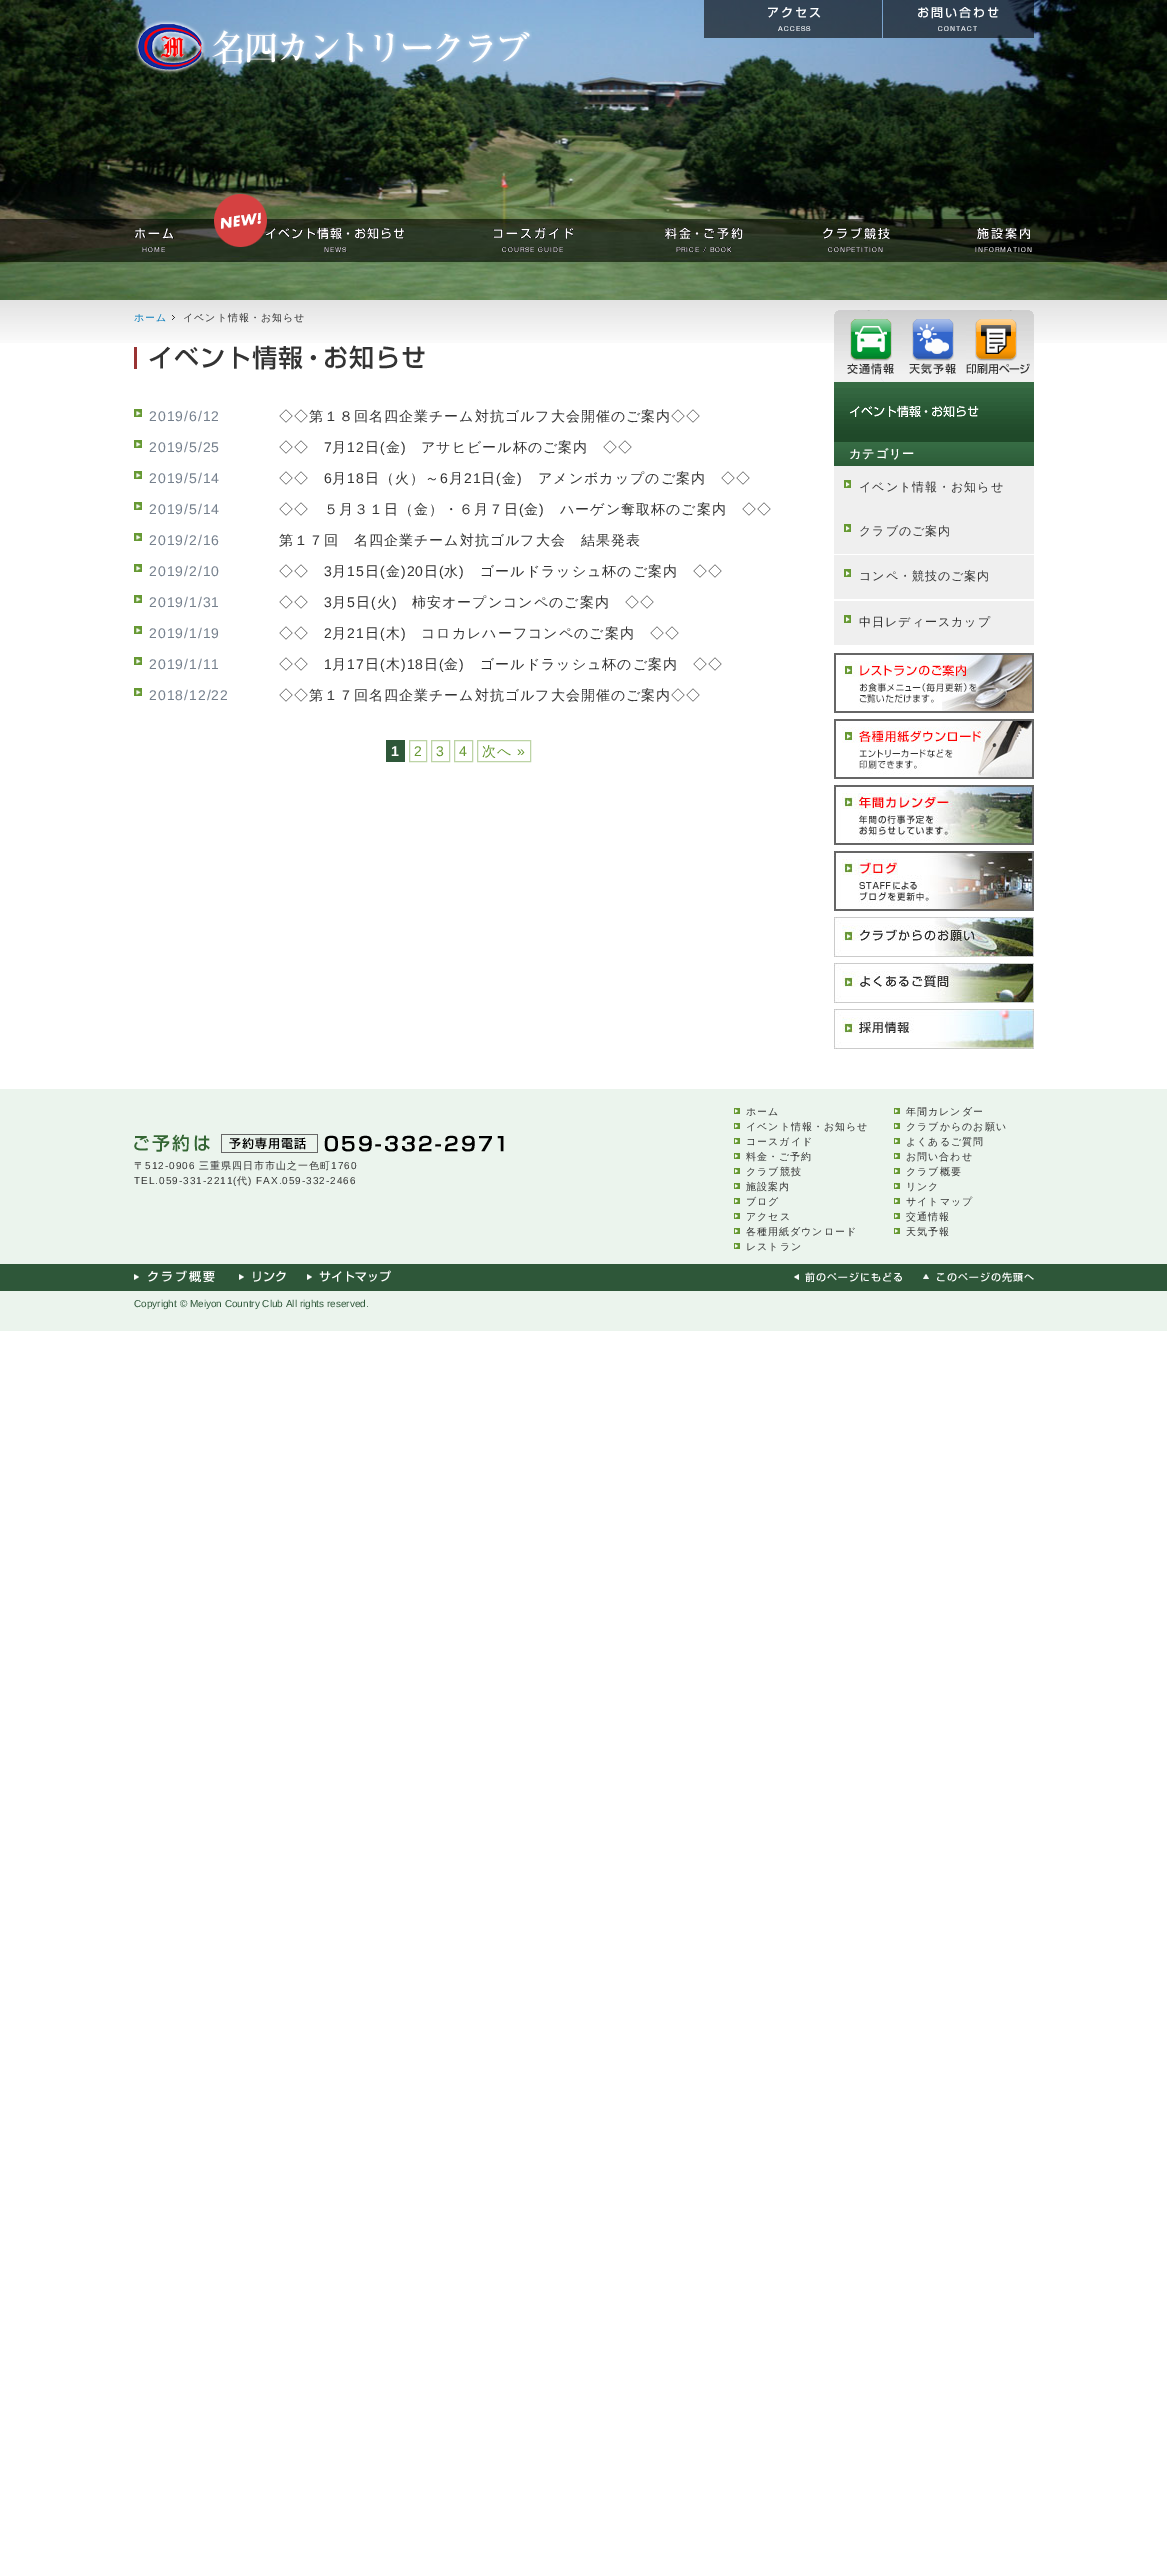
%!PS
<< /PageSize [1167 2549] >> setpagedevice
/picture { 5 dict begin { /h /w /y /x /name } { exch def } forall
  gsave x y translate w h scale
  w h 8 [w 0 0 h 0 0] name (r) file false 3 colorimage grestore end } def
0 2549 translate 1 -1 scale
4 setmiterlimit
1 setgray
0 0 1167 2549 rectfill
(img1.rgb) 0 0 1167 300 picture
(img2.rgb) 134 20 398 54 picture
(img3.rgb) 704 0 178 38 picture
(img4.rgb) 883 0 151 38 picture
(img5.rgb) 134 228 40 24 picture
(img7.rgb) 266 227 139 25 picture
(img6.rgb) 214 194 53 53 picture
(img8.rgb) 493 227 80 25 picture
(img9.rgb) 665 227 78 25 picture
(img10.rgb) 823 227 67 25 picture
(img11.rgb) 975 227 57 25 picture
(img12.rgb) 0 300 1167 43 picture
(img13.rgb) 172 315 3 5 picture
/WenQuanYiZenHei-Medium [10 0 0 -10 0 0] selectfont
0.008 0.478 0.733 setrgbcolor
134 321 moveto 1 0 (ホーム) ashow
0.2 setgray
183 321 moveto 1 0 (イベント情報・お知らせ) ashow
(img14.rgb) 134 345 291 25 picture
(img15.rgb) 134 409 8 8 picture
/LiberationSans-Regular [14 0 0 -14 0 0] selectfont
0.459 0.502 0.553 setrgbcolor
149 421 moveto 1 0 (2019/6/12) ashow
/WenQuanYiZenHei-Medium [14 0 0 -14 0 0] selectfont
0.2 setgray
279 421 moveto 1 0 (◇◇第１８回名四企業チーム対抗ゴルフ大会開催のご案内◇◇) ashow
(img15.rgb) 134 440 8 8 picture
/LiberationSans-Regular [14 0 0 -14 0 0] selectfont
0.459 0.502 0.553 setrgbcolor
149 452 moveto 1 0 (2019/5/25) ashow
/WenQuanYiZenHei-Medium [14 0 0 -14 0 0] selectfont
0.2 setgray
279 452 moveto 1 0 (◇◇) ashow
/LiberationSans-Regular [14 0 0 -14 0 0] selectfont
324 452 moveto 1 0 (7) ashow
/WenQuanYiZenHei-Medium [14 0 0 -14 0 0] selectfont
332 452 moveto 1 0 (月) ashow
/LiberationSans-Regular [14 0 0 -14 0 0] selectfont
347 452 moveto 1 0 (12) ashow
/WenQuanYiZenHei-Medium [14 0 0 -14 0 0] selectfont
365 452 moveto 1 0 (日) ashow
/LiberationSans-Regular [14 0 0 -14 0 0] selectfont
380 452 moveto 1 0 (\() ashow
/WenQuanYiZenHei-Medium [14 0 0 -14 0 0] selectfont
386 452 moveto 1 0 (金) ashow
/LiberationSans-Regular [14 0 0 -14 0 0] selectfont
401 452 moveto 1 0 (\)) ashow
/WenQuanYiZenHei-Medium [14 0 0 -14 0 0] selectfont
421 452 moveto 1 0 (アサヒビール杯のご案内　◇◇) ashow
(img15.rgb) 134 471 8 8 picture
/LiberationSans-Regular [14 0 0 -14 0 0] selectfont
0.459 0.502 0.553 setrgbcolor
149 483 moveto 1 0 (2019/5/14) ashow
/WenQuanYiZenHei-Medium [14 0 0 -14 0 0] selectfont
0.2 setgray
279 483 moveto 1 0 (◇◇) ashow
/LiberationSans-Regular [14 0 0 -14 0 0] selectfont
324 483 moveto 1 0 (6) ashow
/WenQuanYiZenHei-Medium [14 0 0 -14 0 0] selectfont
332 483 moveto 1 0 (月) ashow
/LiberationSans-Regular [14 0 0 -14 0 0] selectfont
347 483 moveto 1 0 (18) ashow
/WenQuanYiZenHei-Medium [14 0 0 -14 0 0] selectfont
365 483 moveto 1 0 (日（火）～) ashow
/LiberationSans-Regular [14 0 0 -14 0 0] selectfont
440 483 moveto 1 0 (6) ashow
/WenQuanYiZenHei-Medium [14 0 0 -14 0 0] selectfont
449 483 moveto 1 0 (月) ashow
/LiberationSans-Regular [14 0 0 -14 0 0] selectfont
464 483 moveto 1 0 (21) ashow
/WenQuanYiZenHei-Medium [14 0 0 -14 0 0] selectfont
481 483 moveto 1 0 (日) ashow
/LiberationSans-Regular [14 0 0 -14 0 0] selectfont
496 483 moveto 1 0 (\() ashow
/WenQuanYiZenHei-Medium [14 0 0 -14 0 0] selectfont
502 483 moveto 1 0 (金) ashow
/LiberationSans-Regular [14 0 0 -14 0 0] selectfont
517 483 moveto 1 0 (\)) ashow
/WenQuanYiZenHei-Medium [14 0 0 -14 0 0] selectfont
538 483 moveto 1 0 (アメンボカップのご案内　◇◇) ashow
(img15.rgb) 134 502 8 8 picture
/LiberationSans-Regular [14 0 0 -14 0 0] selectfont
0.459 0.502 0.553 setrgbcolor
149 514 moveto 1 0 (2019/5/14) ashow
/WenQuanYiZenHei-Medium [14 0 0 -14 0 0] selectfont
0.2 setgray
279 514 moveto 1 0 (◇◇　５月３１日（金）・６月７日) ashow
/LiberationSans-Regular [14 0 0 -14 0 0] selectfont
519 514 moveto 1 0 (\() ashow
/WenQuanYiZenHei-Medium [14 0 0 -14 0 0] selectfont
524 514 moveto 1 0 (金) ashow
/LiberationSans-Regular [14 0 0 -14 0 0] selectfont
539 514 moveto 1 0 (\)) ashow
/WenQuanYiZenHei-Medium [14 0 0 -14 0 0] selectfont
560 514 moveto 1 0 (ハーゲン奪取杯のご案内　◇◇) ashow
(img15.rgb) 134 533 8 8 picture
/LiberationSans-Regular [14 0 0 -14 0 0] selectfont
0.459 0.502 0.553 setrgbcolor
149 545 moveto 1 0 (2019/2/16) ashow
/WenQuanYiZenHei-Medium [14 0 0 -14 0 0] selectfont
0.2 setgray
279 545 moveto 1 0 (第１７回　名四企業チーム対抗ゴルフ大会　結果発表) ashow
(img15.rgb) 134 564 8 8 picture
/LiberationSans-Regular [14 0 0 -14 0 0] selectfont
0.459 0.502 0.553 setrgbcolor
149 576 moveto 1 0 (2019/2/10) ashow
/WenQuanYiZenHei-Medium [14 0 0 -14 0 0] selectfont
0.2 setgray
279 576 moveto 1 0 (◇◇) ashow
/LiberationSans-Regular [14 0 0 -14 0 0] selectfont
324 576 moveto 1 0 (3) ashow
/WenQuanYiZenHei-Medium [14 0 0 -14 0 0] selectfont
332 576 moveto 1 0 (月) ashow
/LiberationSans-Regular [14 0 0 -14 0 0] selectfont
347 576 moveto 1 0 (15) ashow
/WenQuanYiZenHei-Medium [14 0 0 -14 0 0] selectfont
365 576 moveto 1 0 (日) ashow
/LiberationSans-Regular [14 0 0 -14 0 0] selectfont
380 576 moveto 1 0 (\() ashow
/WenQuanYiZenHei-Medium [14 0 0 -14 0 0] selectfont
386 576 moveto 1 0 (金) ashow
/LiberationSans-Regular [14 0 0 -14 0 0] selectfont
401 576 moveto 1 0 (\)20) ashow
/WenQuanYiZenHei-Medium [14 0 0 -14 0 0] selectfont
424 576 moveto 1 0 (日) ashow
/LiberationSans-Regular [14 0 0 -14 0 0] selectfont
439 576 moveto 1 0 (\() ashow
/WenQuanYiZenHei-Medium [14 0 0 -14 0 0] selectfont
444 576 moveto 1 0 (水) ashow
/LiberationSans-Regular [14 0 0 -14 0 0] selectfont
459 576 moveto 1 0 (\)) ashow
/WenQuanYiZenHei-Medium [14 0 0 -14 0 0] selectfont
480 576 moveto 1 0 (ゴールドラッシュ杯のご案内　◇◇) ashow
(img15.rgb) 134 595 8 8 picture
/LiberationSans-Regular [14 0 0 -14 0 0] selectfont
0.459 0.502 0.553 setrgbcolor
149 607 moveto 1 0 (2019/1/31) ashow
/WenQuanYiZenHei-Medium [14 0 0 -14 0 0] selectfont
0.2 setgray
279 607 moveto 1 0 (◇◇) ashow
/LiberationSans-Regular [14 0 0 -14 0 0] selectfont
324 607 moveto 1 0 (3) ashow
/WenQuanYiZenHei-Medium [14 0 0 -14 0 0] selectfont
332 607 moveto 1 0 (月) ashow
/LiberationSans-Regular [14 0 0 -14 0 0] selectfont
347 607 moveto 1 0 (5) ashow
/WenQuanYiZenHei-Medium [14 0 0 -14 0 0] selectfont
356 607 moveto 1 0 (日) ashow
/LiberationSans-Regular [14 0 0 -14 0 0] selectfont
371 607 moveto 1 0 (\() ashow
/WenQuanYiZenHei-Medium [14 0 0 -14 0 0] selectfont
377 607 moveto 1 0 (火) ashow
/LiberationSans-Regular [14 0 0 -14 0 0] selectfont
392 607 moveto 1 0 (\)) ashow
/WenQuanYiZenHei-Medium [14 0 0 -14 0 0] selectfont
412 607 moveto 1 0 (柿安オープンコンペのご案内　◇◇) ashow
(img15.rgb) 134 626 8 8 picture
/LiberationSans-Regular [14 0 0 -14 0 0] selectfont
0.459 0.502 0.553 setrgbcolor
149 638 moveto 1 0 (2019/1/19) ashow
/WenQuanYiZenHei-Medium [14 0 0 -14 0 0] selectfont
0.2 setgray
279 638 moveto 1 0 (◇◇) ashow
/LiberationSans-Regular [14 0 0 -14 0 0] selectfont
324 638 moveto 1 0 (2) ashow
/WenQuanYiZenHei-Medium [14 0 0 -14 0 0] selectfont
332 638 moveto 1 0 (月) ashow
/LiberationSans-Regular [14 0 0 -14 0 0] selectfont
347 638 moveto 1 0 (21) ashow
/WenQuanYiZenHei-Medium [14 0 0 -14 0 0] selectfont
365 638 moveto 1 0 (日) ashow
/LiberationSans-Regular [14 0 0 -14 0 0] selectfont
380 638 moveto 1 0 (\() ashow
/WenQuanYiZenHei-Medium [14 0 0 -14 0 0] selectfont
386 638 moveto 1 0 (木) ashow
/LiberationSans-Regular [14 0 0 -14 0 0] selectfont
401 638 moveto 1 0 (\)) ashow
/WenQuanYiZenHei-Medium [14 0 0 -14 0 0] selectfont
421 638 moveto 1 0 (コロカレハーフコンペのご案内　◇◇) ashow
(img15.rgb) 134 657 8 8 picture
/LiberationSans-Regular [14 0 0 -14 0 0] selectfont
0.459 0.502 0.553 setrgbcolor
149 669 moveto 1 0 (2019/1/11) ashow
/WenQuanYiZenHei-Medium [14 0 0 -14 0 0] selectfont
0.2 setgray
279 669 moveto 1 0 (◇◇) ashow
/LiberationSans-Regular [14 0 0 -14 0 0] selectfont
324 669 moveto 1 0 (1) ashow
/WenQuanYiZenHei-Medium [14 0 0 -14 0 0] selectfont
332 669 moveto 1 0 (月) ashow
/LiberationSans-Regular [14 0 0 -14 0 0] selectfont
347 669 moveto 1 0 (17) ashow
/WenQuanYiZenHei-Medium [14 0 0 -14 0 0] selectfont
365 669 moveto 1 0 (日) ashow
/LiberationSans-Regular [14 0 0 -14 0 0] selectfont
380 669 moveto 1 0 (\() ashow
/WenQuanYiZenHei-Medium [14 0 0 -14 0 0] selectfont
386 669 moveto 1 0 (木) ashow
/LiberationSans-Regular [14 0 0 -14 0 0] selectfont
401 669 moveto 1 0 (\)18) ashow
/WenQuanYiZenHei-Medium [14 0 0 -14 0 0] selectfont
424 669 moveto 1 0 (日) ashow
/LiberationSans-Regular [14 0 0 -14 0 0] selectfont
439 669 moveto 1 0 (\() ashow
/WenQuanYiZenHei-Medium [14 0 0 -14 0 0] selectfont
444 669 moveto 1 0 (金) ashow
/LiberationSans-Regular [14 0 0 -14 0 0] selectfont
459 669 moveto 1 0 (\)) ashow
/WenQuanYiZenHei-Medium [14 0 0 -14 0 0] selectfont
480 669 moveto 1 0 (ゴールドラッシュ杯のご案内　◇◇) ashow
(img15.rgb) 134 688 8 8 picture
/LiberationSans-Regular [14 0 0 -14 0 0] selectfont
0.459 0.502 0.553 setrgbcolor
149 700 moveto 1 0 (2018/12/22) ashow
/WenQuanYiZenHei-Medium [14 0 0 -14 0 0] selectfont
0.2 setgray
279 700 moveto 1 0 (◇◇第１７回名四企業チーム対抗ゴルフ大会開催のご案内◇◇) ashow
0.18 0.341 0.224 setrgbcolor
386 740 19 22 rectfill
/LiberationSans-Bold [14 0 0 -14 0 0] selectfont
1 setgray
391 756 moveto 1 0 (1) ashow
0.741 0.831 0.651 setrgbcolor
409.5 740.5 17 21 rectstroke
/LiberationSans-Regular [14 0 0 -14 0 0] selectfont
0.4 0.6 0.2 setrgbcolor
414 756 moveto 1 0 (2) ashow
0.741 0.831 0.651 setrgbcolor
431.5 740.5 18 21 rectstroke
0.4 0.6 0.2 setrgbcolor
436 756 moveto 1 0 (3) ashow
0.741 0.831 0.651 setrgbcolor
454.5 740.5 18 21 rectstroke
0.4 0.6 0.2 setrgbcolor
459 756 moveto 1 0 (4) ashow
0.741 0.831 0.651 setrgbcolor
477.5 740.5 53 21 rectstroke
/WenQuanYiZenHei-Medium [14 0 0 -14 0 0] selectfont
0.4 0.6 0.2 setrgbcolor
482 756 moveto 1 0 (次へ) ashow
/LiberationSans-Regular [14 0 0 -14 0 0] selectfont
517 756 moveto 1 0 (») ashow
(img16.rgb) 834 310 68 72 picture
(img17.rgb) 902 310 64 72 picture
(img18.rgb) 966 310 68 72 picture
(img19.rgb) 834 382 200 60 picture
(img20.rgb) 834 442 200 24 picture
/WenQuanYiZenHei-Bold [12 0 0 -12 0 0] selectfont
1 setgray
849 458 moveto 1 0 (カテゴリー) ashow
0.937 setgray
834 466 200 88 rectfill
(img21.rgb) 844 480 7 8 picture
/WenQuanYiZenHei-Medium [12 0 0 -12 0 0] selectfont
0.2 setgray
859 491 moveto 1 0 (イベント情報・お知らせ) ashow
(img21.rgb) 844 524 7 8 picture
859 535 moveto 1 0 (クラブのご案内) ashow
0.937 setgray
834 555 200 44 rectfill
(img21.rgb) 844 569 7 8 picture
0.2 setgray
859 580 moveto 1 0 (コンペ・競技のご案内) ashow
0.937 setgray
834 601 200 44 rectfill
(img21.rgb) 844 615 7 8 picture
0.2 setgray
859 626 moveto 1 0 (中日レディースカップ) ashow
(img22.rgb) 834 653 200 60 picture
(img23.rgb) 834 719 200 60 picture
(img24.rgb) 834 785 200 60 picture
(img25.rgb) 834 851 200 60 picture
(img26.rgb) 834 917 200 40 picture
(img27.rgb) 834 963 200 40 picture
(img28.rgb) 834 1009 200 40 picture
0.922 0.957 0.929 setrgbcolor
0 1089 1167 242 rectfill
(img29.rgb) 134 1134 370 19 picture
/WenQuanYiZenHei-Medium [10 0 0 -10 0 0] selectfont
0.2 setgray
134 1169 moveto 1 0 (〒) ashow
/LiberationSans-Regular [10 0 0 -10 0 0] selectfont
145 1169 moveto 1 0 (512-0906) ashow
/WenQuanYiZenHei-Medium [10 0 0 -10 0 0] selectfont
199 1169 moveto 1 0 (三重県四日市市山之一色町) ashow
/LiberationSans-Regular [10 0 0 -10 0 0] selectfont
331 1169 moveto 1 0 (1760) ashow
134 1184 moveto 1 0 (TEL.059-331-2211\() ashow
/WenQuanYiZenHei-Medium [10 0 0 -10 0 0] selectfont
237 1184 moveto 1 0 (代) ashow
/LiberationSans-Regular [10 0 0 -10 0 0] selectfont
248 1184 moveto 1 0 (\) FAX.059-332-2466) ashow
(img30.rgb) 734 1108 6 6 picture
/WenQuanYiZenHei-Medium [10 0 0 -10 0 0] selectfont
746 1115 moveto 1 0 (ホーム) ashow
(img30.rgb) 734 1123 6 6 picture
746 1130 moveto 1 0 (イベント情報・お知らせ) ashow
(img30.rgb) 734 1138 6 6 picture
746 1145 moveto 1 0 (コースガイド) ashow
(img30.rgb) 734 1153 6 6 picture
746 1160 moveto 1 0 (料金・ご予約) ashow
(img30.rgb) 734 1168 6 6 picture
746 1175 moveto 1 0 (クラブ競技) ashow
(img30.rgb) 734 1183 6 6 picture
746 1190 moveto 1 0 (施設案内) ashow
(img30.rgb) 734 1198 6 6 picture
746 1205 moveto 1 0 (ブログ) ashow
(img30.rgb) 734 1213 6 6 picture
746 1220 moveto 1 0 (アクセス) ashow
(img30.rgb) 734 1228 6 6 picture
746 1235 moveto 1 0 (各種用紙ダウンロード) ashow
(img30.rgb) 734 1243 6 6 picture
746 1250 moveto 1 0 (レストラン) ashow
(img30.rgb) 894 1108 6 6 picture
906 1115 moveto 1 0 (年間カレンダー) ashow
(img30.rgb) 894 1123 6 6 picture
906 1130 moveto 1 0 (クラブからのお願い) ashow
(img30.rgb) 894 1138 6 6 picture
906 1145 moveto 1 0 (よくあるご質問) ashow
(img30.rgb) 894 1153 6 6 picture
906 1160 moveto 1 0 (お問い合わせ) ashow
(img30.rgb) 894 1168 6 6 picture
906 1175 moveto 1 0 (クラブ概要) ashow
(img30.rgb) 894 1183 6 6 picture
906 1190 moveto 1 0 (リンク) ashow
(img30.rgb) 894 1198 6 6 picture
906 1205 moveto 1 0 (サイトマップ) ashow
(img30.rgb) 894 1213 6 6 picture
906 1220 moveto 1 0 (交通情報) ashow
(img30.rgb) 894 1228 6 6 picture
906 1235 moveto 1 0 (天気予報) ashow
0.18 0.341 0.224 setrgbcolor
0 1264 1167 27 rectfill
(img31.rgb) 134 1270 81 13 picture
(img32.rgb) 239 1271 47 11 picture
(img33.rgb) 307 1270 84 12 picture
(img34.rgb) 794 1272 108 10 picture
(img35.rgb) 923 1272 111 10 picture
/LiberationSans-Regular [10 0 0 -10 0 0] selectfont
134 1307 moveto (Copyright © Meiyon Country Club All rights reserved.) show
showpage
